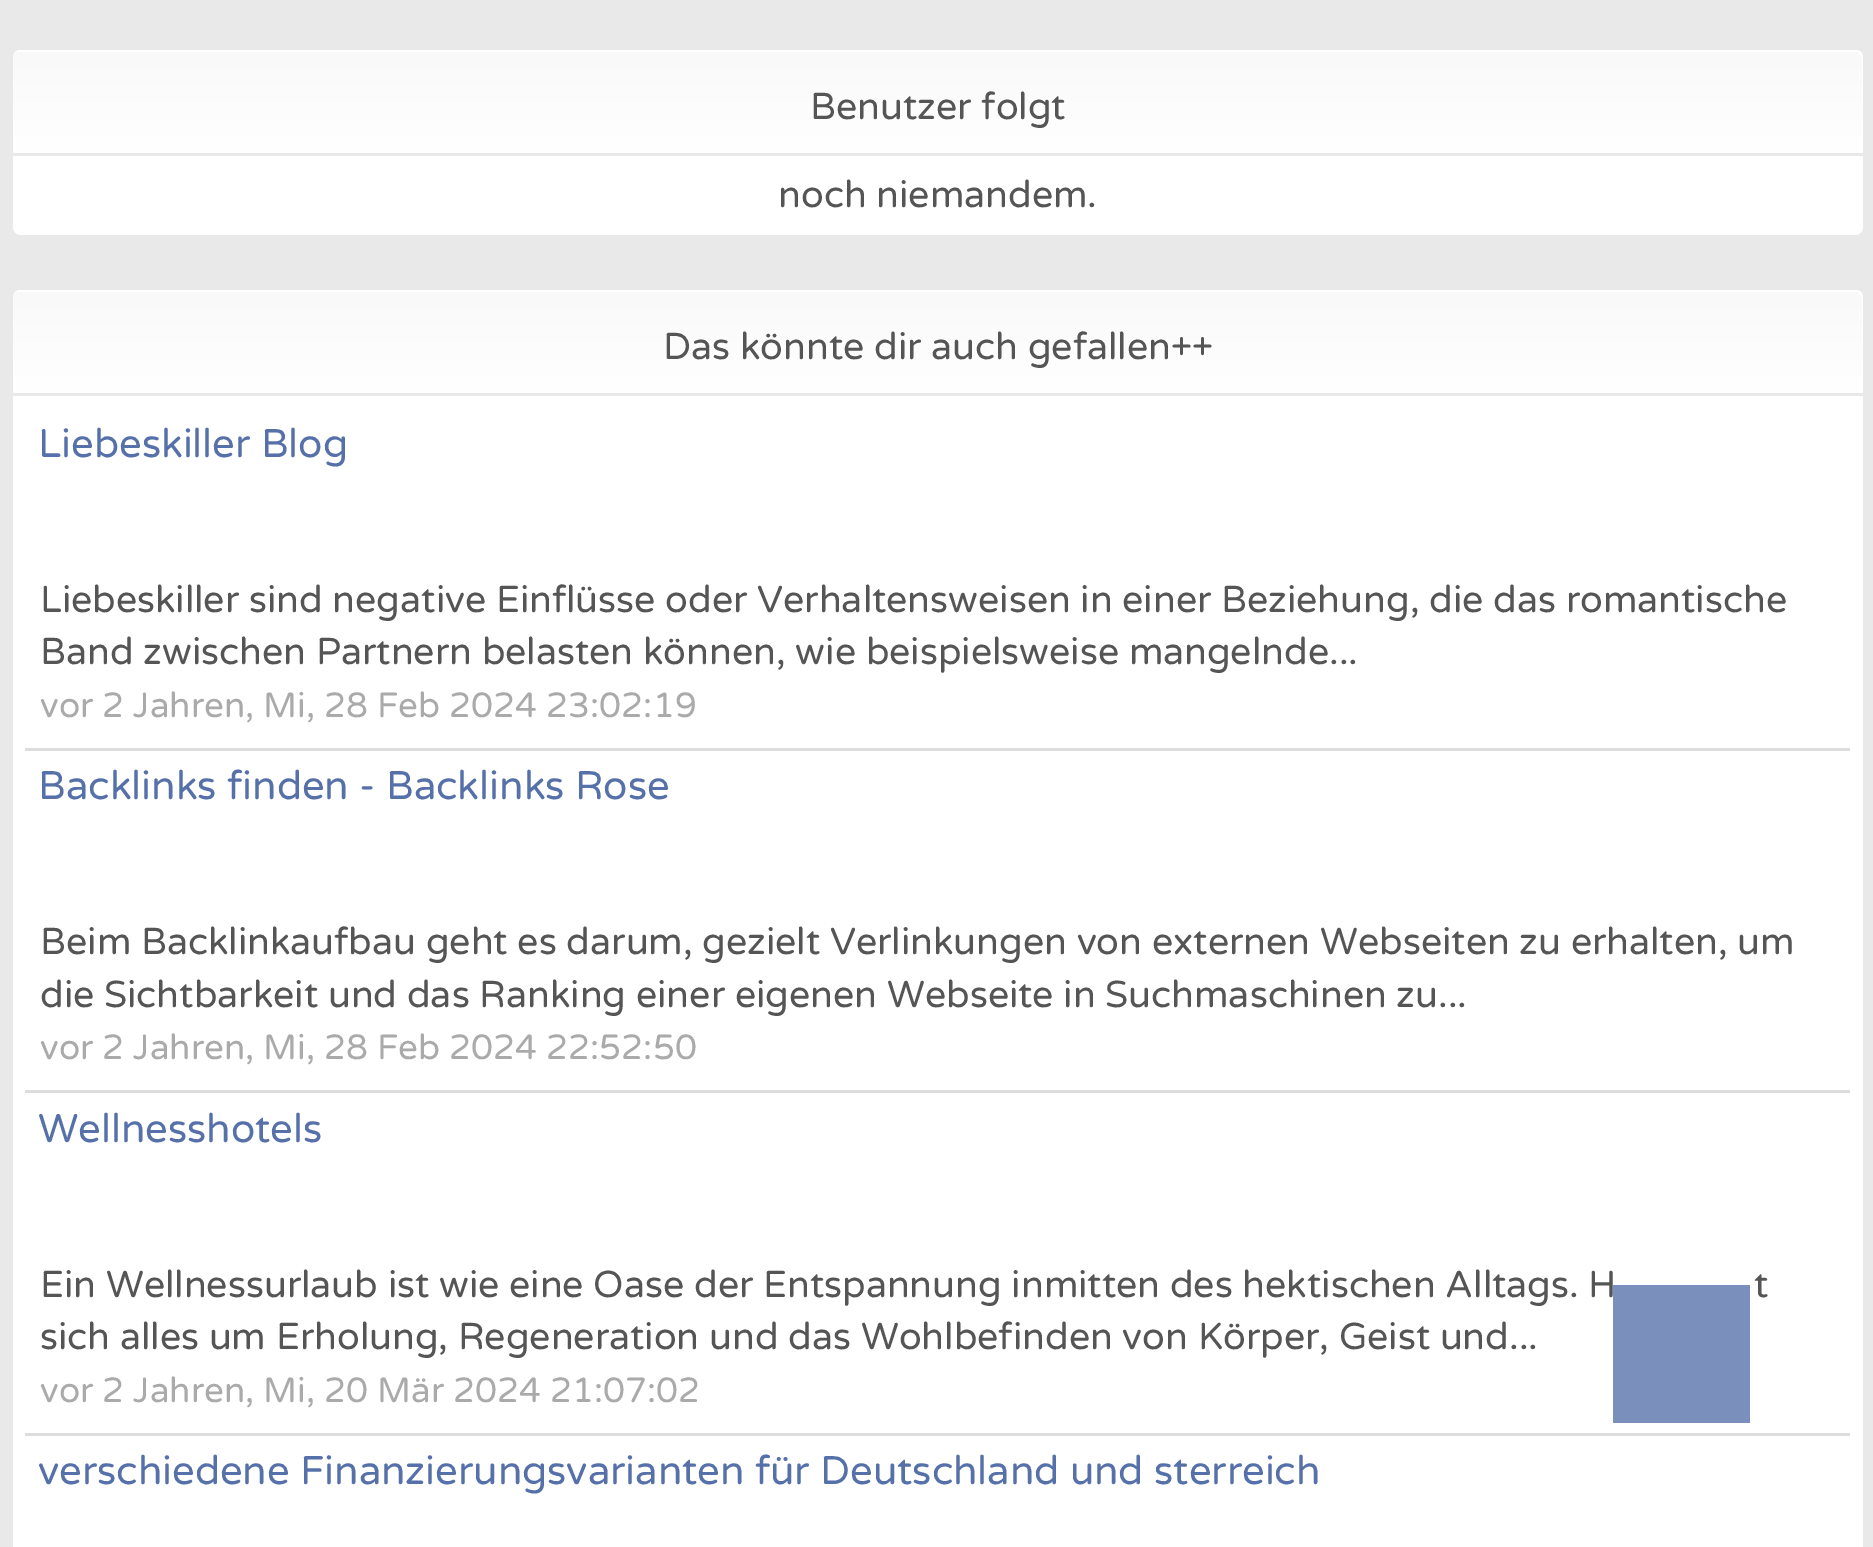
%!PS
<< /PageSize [1873 1547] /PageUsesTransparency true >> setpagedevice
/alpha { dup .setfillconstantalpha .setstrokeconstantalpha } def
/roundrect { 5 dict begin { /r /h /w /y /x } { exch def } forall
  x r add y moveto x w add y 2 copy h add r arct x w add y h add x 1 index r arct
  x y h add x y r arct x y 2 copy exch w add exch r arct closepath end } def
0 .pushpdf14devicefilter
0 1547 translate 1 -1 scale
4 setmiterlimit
0.914 setgray
0 0 1873 1547 rectfill
1 setgray
13 50 1850 185 8 roundrect fill
gsave newpath 21 50 moveto 1855 50 lineto 1859.5 50 1863 53.5 1863 58 curveto 1863 153 lineto 13 153 lineto 13 58 lineto 13 53.5 16.5 50 21 50 curveto closepath clip newpath
<< /ShadingType 2 /ColorSpace /DeviceRGB /Coords [938 153 938 50] /Extend [true true] /Function << /FunctionType 2 /Domain [0 1] /C0 [1 1 1] /C1 [0.976 0.976 0.976] /N 1 >> >> shfill grestore
newpath 21 50 moveto 1855 50 lineto 1859 50 1863 54 1863 58 curveto 1863 153 lineto 1862 153 lineto 1862 60 lineto 1862 56 1859 52 1855 52 curveto 16 52 lineto 17 51 19 50 21 50 curveto closepath fill
0.914 setgray
13 153 1850 3 rectfill
/VarelaRound-Regular [37.5 0 0 -37.5 0 0] selectfont
0.333 setgray
810 119 moveto (Benutzer folgt) show
778 207 moveto (noch niemandem.) show
1 setgray
13 290 1850 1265 8 roundrect fill
gsave newpath 21 290 moveto 1855 290 lineto 1859.5 290 1863 293.5 1863 298 curveto 1863 393 lineto 13 393 lineto 13 298 lineto 13 293.5 16.5 290 21 290 curveto closepath clip newpath
<< /ShadingType 2 /ColorSpace /DeviceRGB /Coords [938 393 938 290] /Extend [true true] /Function << /FunctionType 2 /Domain [0 1] /C0 [1 1 1] /C1 [0.976 0.976 0.976] /N 1 >> >> shfill grestore
newpath 21 290 moveto 19 290 17 291 16 292 curveto 1855 292 lineto 1859 292 1862 296 1862 300 curveto 1862 393 lineto 1863 393 lineto 1863 298 lineto 1863 294 1859 290 1855 290 curveto closepath fill
0.914 setgray
13 393 1850 3 rectfill
0.333 setgray
663 359 moveto (Das könnte dir auch gefallen++) show
0.867 setgray
25 748 1825 3 rectfill
/VarelaRound-Regular [40 0 0 -40 0 0] selectfont
0.337 0.439 0.663 setrgbcolor
38 457 moveto (Liebeskiller Blog) show
/VarelaRound-Regular [37.5 0 0 -37.5 0 0] selectfont
0.333 setgray
40 612 moveto (Liebeskiller sind negative Einflüsse oder Verhaltensweisen in einer Beziehung, die das romantische) show
40 664 moveto (Band zwischen Partnern belasten können, wie beispielsweise mangelnde...) show
/VarelaRound-Regular [35 0 0 -35 0 0] selectfont
0.667 setgray
40 717 moveto (vor 2 Jahren, Mi, 28 Feb 2024 23:02:19) show
0.867 setgray
25 1090 1825 3 rectfill
/VarelaRound-Regular [40 0 0 -40 0 0] selectfont
0.337 0.439 0.663 setrgbcolor
38 799 moveto (Backlinks finden - Backlinks Rose) show
/VarelaRound-Regular [37.5 0 0 -37.5 0 0] selectfont
0.333 setgray
40 954 moveto (Beim Backlinkaufbau geht es darum, gezielt Verlinkungen von externen Webseiten zu erhalten, um) show
40 1007 moveto (die Sichtbarkeit und das Ranking einer eigenen Webseite in Suchmaschinen zu...) show
/VarelaRound-Regular [35 0 0 -35 0 0] selectfont
0.667 setgray
40 1059 moveto (vor 2 Jahren, Mi, 28 Feb 2024 22:52:50) show
0.867 setgray
25 1433 1825 3 rectfill
/VarelaRound-Regular [40 0 0 -40 0 0] selectfont
0.337 0.439 0.663 setrgbcolor
38 1142 moveto (Wellnesshotels) show
/VarelaRound-Regular [37.5 0 0 -37.5 0 0] selectfont
0.333 setgray
40 1297 moveto (Ein Wellnessurlaub ist wie eine Oase der Entspannung inmitten des hektischen Alltags. H) show
1754 1297 moveto (t) show
40 1349 moveto (sich alles um Erholung, Regeneration und das Wohlbefinden von Körper, Geist und...) show
/VarelaRound-Regular [35 0 0 -35 0 0] selectfont
0.667 setgray
40 1402 moveto (vor 2 Jahren, Mi, 20 Mär 2024 21:07:02) show
/VarelaRound-Regular [40 0 0 -40 0 0] selectfont
0.337 0.439 0.663 setrgbcolor
38 1484 moveto (verschiedene Finanzierungsvarianten für Deutschland und sterreich) show
0.78 alpha
1613 1285 137 138 rectfill
.poppdf14devicefilter showpage
